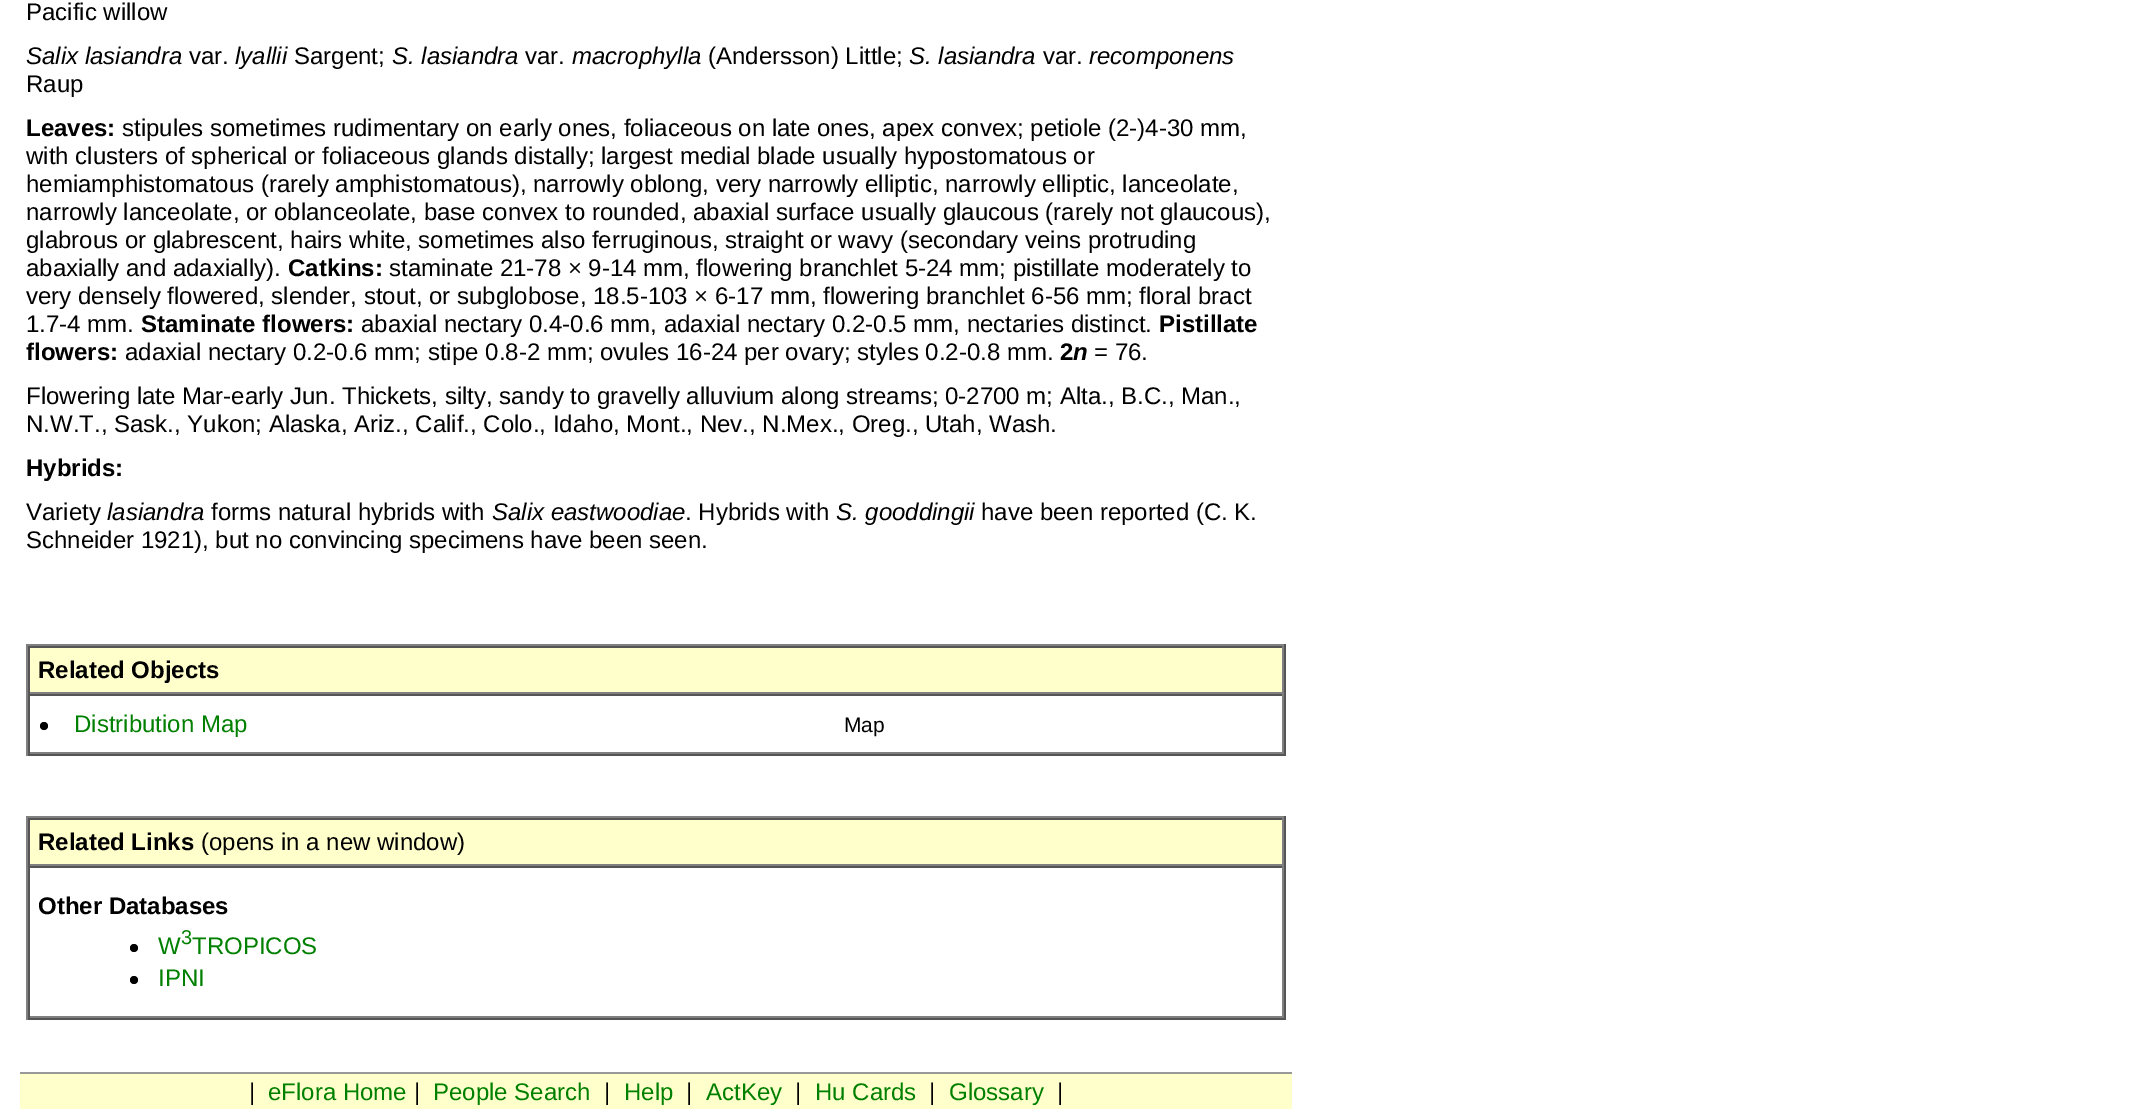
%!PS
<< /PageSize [2137 1109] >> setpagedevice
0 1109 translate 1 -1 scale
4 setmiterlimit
1 setgray
0 0 2137 1109 rectfill
/LiberationSans-Regular [24 0 0 -24 0 0] selectfont
0 setgray
26 20 moveto (Pacific willow) show
/LiberationSans-Italic [24 0 0 -24 0 0] selectfont
26 64 moveto (Salix lasiandra) show
/LiberationSans-Regular [24 0 0 -24 0 0] selectfont
189 64 moveto (var.) show
/LiberationSans-Italic [24 0 0 -24 0 0] selectfont
235 64 moveto (lyallii) show
/LiberationSans-Regular [24 0 0 -24 0 0] selectfont
294 64 moveto (Sargent;) show
/LiberationSans-Italic [24 0 0 -24 0 0] selectfont
392 64 moveto (S. lasiandra) show
/LiberationSans-Regular [24 0 0 -24 0 0] selectfont
525 64 moveto (var.) show
/LiberationSans-Italic [24 0 0 -24 0 0] selectfont
572 64 moveto (macrophylla) show
/LiberationSans-Regular [24 0 0 -24 0 0] selectfont
708 64 moveto (\(Andersson\) Little;) show
/LiberationSans-Italic [24 0 0 -24 0 0] selectfont
909 64 moveto (S. lasiandra) show
/LiberationSans-Regular [24 0 0 -24 0 0] selectfont
1043 64 moveto (var.) show
/LiberationSans-Italic [24 0 0 -24 0 0] selectfont
1089 64 moveto (recomponens) show
/LiberationSans-Regular [24 0 0 -24 0 0] selectfont
26 92 moveto (Raup) show
/LiberationSans-Bold [24 0 0 -24 0 0] selectfont
26 136 moveto (Leaves:) show
/LiberationSans-Regular [24 0 0 -24 0 0] selectfont
122 136 moveto (stipules sometimes rudimentary on early ones, foliaceous on late ones, apex convex; petiole \(2-\)4-30 mm,) show
26 164 moveto (with clusters of spherical or foliaceous glands distally; largest medial blade usually hypostomatous or) show
26 192 moveto (hemiamphistomatous \(rarely amphistomatous\), narrowly oblong, very narrowly elliptic, narrowly elliptic, lanceolate,) show
26 220 moveto (narrowly lanceolate, or oblanceolate, base convex to rounded, abaxial surface usually glaucous \(rarely not glaucous\),) show
26 248 moveto (glabrous or glabrescent, hairs white, sometimes also ferruginous, straight or wavy \(secondary veins protruding) show
26 276 moveto (abaxially and adaxially\).) show
/LiberationSans-Bold [24 0 0 -24 0 0] selectfont
288 276 moveto (Catkins:) show
/LiberationSans-Regular [24 0 0 -24 0 0] selectfont
389 276 moveto (staminate 21-78 × 9-14 mm, flowering branchlet 5-24 mm; pistillate moderately to) show
26 304 moveto (very densely flowered, slender, stout, or subglobose, 18.5-103 × 6-17 mm, flowering branchlet 6-56 mm; floral bract) show
26 332 moveto (1.7-4 mm.) show
/LiberationSans-Bold [24 0 0 -24 0 0] selectfont
141 332 moveto (Staminate flowers:) show
/LiberationSans-Regular [24 0 0 -24 0 0] selectfont
361 332 moveto (abaxial nectary 0.4-0.6 mm, adaxial nectary 0.2-0.5 mm, nectaries distinct.) show
/LiberationSans-Bold [24 0 0 -24 0 0] selectfont
1159 332 moveto (Pistillate) show
26 360 moveto (flowers:) show
/LiberationSans-Regular [24 0 0 -24 0 0] selectfont
125 360 moveto (adaxial nectary 0.2-0.6 mm; stipe 0.8-2 mm; ovules 16-24 per ovary; styles 0.2-0.8 mm.) show
/LiberationSans-Bold [24 0 0 -24 0 0] selectfont
1060 360 moveto (2) show
/LiberationSans-BoldItalic [24 0 0 -24 0 0] selectfont
1073 360 moveto (n) show
/LiberationSans-Regular [24 0 0 -24 0 0] selectfont
1094 360 moveto (= 76.) show
26 404 moveto (Flowering late Mar-early Jun. Thickets, silty, sandy to gravelly alluvium along streams; 0-2700 m; Alta., B.C., Man.,) show
26 432 moveto (N.W.T., Sask., Yukon; Alaska, Ariz., Calif., Colo., Idaho, Mont., Nev., N.Mex., Oreg., Utah, Wash.) show
/LiberationSans-Bold [24 0 0 -24 0 0] selectfont
26 476 moveto (Hybrids:) show
/LiberationSans-Regular [24 0 0 -24 0 0] selectfont
26 520 moveto (Variety) show
/LiberationSans-Italic [24 0 0 -24 0 0] selectfont
107 520 moveto (lasiandra) show
/LiberationSans-Regular [24 0 0 -24 0 0] selectfont
211 520 moveto (forms natural hybrids with) show
/LiberationSans-Italic [24 0 0 -24 0 0] selectfont
492 520 moveto (Salix eastwoodiae) show
/LiberationSans-Regular [24 0 0 -24 0 0] selectfont
685 520 moveto (. Hybrids with) show
/LiberationSans-Italic [24 0 0 -24 0 0] selectfont
836 520 moveto (S. gooddingii) show
/LiberationSans-Regular [24 0 0 -24 0 0] selectfont
981 520 moveto (have been reported \(C. K.) show
26 548 moveto (Schneider 1921\), but no convincing specimens have been seen.) show
0.502 setgray
26 644 1260 2 rectfill
0.333 setgray
1284 644 2 112 rectfill
26 754 1260 2 rectfill
0.502 setgray
26 644 2 112 rectfill
1 1 0.8 setrgbcolor
30 648 1252 44 rectfill
0.333 setgray
28 646 1256 2 rectfill
0.502 setgray
1282 646 2 48 rectfill
28 692 1256 2 rectfill
0.333 setgray
28 646 2 48 rectfill
/LiberationSans-Bold [24 0 0 -24 0 0] selectfont
0 setgray
38 678 moveto (Related Objects) show
0.333 setgray
28 694 1256 2 rectfill
0.502 setgray
1282 694 2 60 rectfill
28 752 1256 2 rectfill
0.333 setgray
28 694 2 60 rectfill
0 setgray
newpath 44 726 4 0 360 arc closepath fill
/LiberationSans-Regular [24 0 0 -24 0 0] selectfont
0 0.502 0 setrgbcolor
74 732 moveto (Distribution Map) show
/LiberationSans-Regular [21 0 0 -21 0 0] selectfont
0 setgray
844 732 moveto (Map) show
0.502 setgray
26 816 1260 2 rectfill
0.333 setgray
1284 816 2 204 rectfill
26 1018 1260 2 rectfill
0.502 setgray
26 816 2 204 rectfill
1 1 0.8 setrgbcolor
30 820 1252 44 rectfill
0.333 setgray
28 818 1256 2 rectfill
0.502 setgray
1282 818 2 48 rectfill
28 864 1256 2 rectfill
0.333 setgray
28 818 2 48 rectfill
/LiberationSans-Bold [24 0 0 -24 0 0] selectfont
0 setgray
38 850 moveto (Related Links) show
/LiberationSans-Regular [24 0 0 -24 0 0] selectfont
201 850 moveto (\(opens in a new window\)) show
0.333 setgray
28 866 1256 2 rectfill
0.502 setgray
1282 866 2 152 rectfill
28 1016 1256 2 rectfill
0.333 setgray
28 866 2 152 rectfill
/LiberationSans-Bold [24 0 0 -24 0 0] selectfont
0 setgray
38 914 moveto (Other Databases) show
newpath 134 948 4 0 360 arc closepath fill
/LiberationSans-Regular [24 0 0 -24 0 0] selectfont
0 0.502 0 setrgbcolor
158 954 moveto (W) show
/LiberationSans-Regular [20 0 0 -20 0 0] selectfont
181 944 moveto (3) show
/LiberationSans-Regular [24 0 0 -24 0 0] selectfont
192 954 moveto (TROPICOS) show
0 setgray
newpath 134 980 4 0 360 arc closepath fill
0 0.502 0 setrgbcolor
158 986 moveto (IPNI) show
0.6 setgray
20 1072 1272 2 rectfill
1 1 0.8 setrgbcolor
20 1074 1272 35 rectfill
0 setgray
249 1100 moveto (|) show
0 0.502 0 setrgbcolor
268 1100 moveto (eFlora Home) show
0 setgray
414 1100 moveto (|) show
0 0.502 0 setrgbcolor
433 1100 moveto (People Search) show
0 setgray
604 1100 moveto (|) show
0 0.502 0 setrgbcolor
624 1100 moveto (Help) show
0 setgray
686 1100 moveto (|) show
0 0.502 0 setrgbcolor
706 1100 moveto (ActKey) show
0 setgray
795 1100 moveto (|) show
0 0.502 0 setrgbcolor
815 1100 moveto (Hu Cards) show
0 setgray
929 1100 moveto (|) show
0 0.502 0 setrgbcolor
949 1100 moveto (Glossary) show
0 setgray
1057 1100 moveto (|) show
showpage
